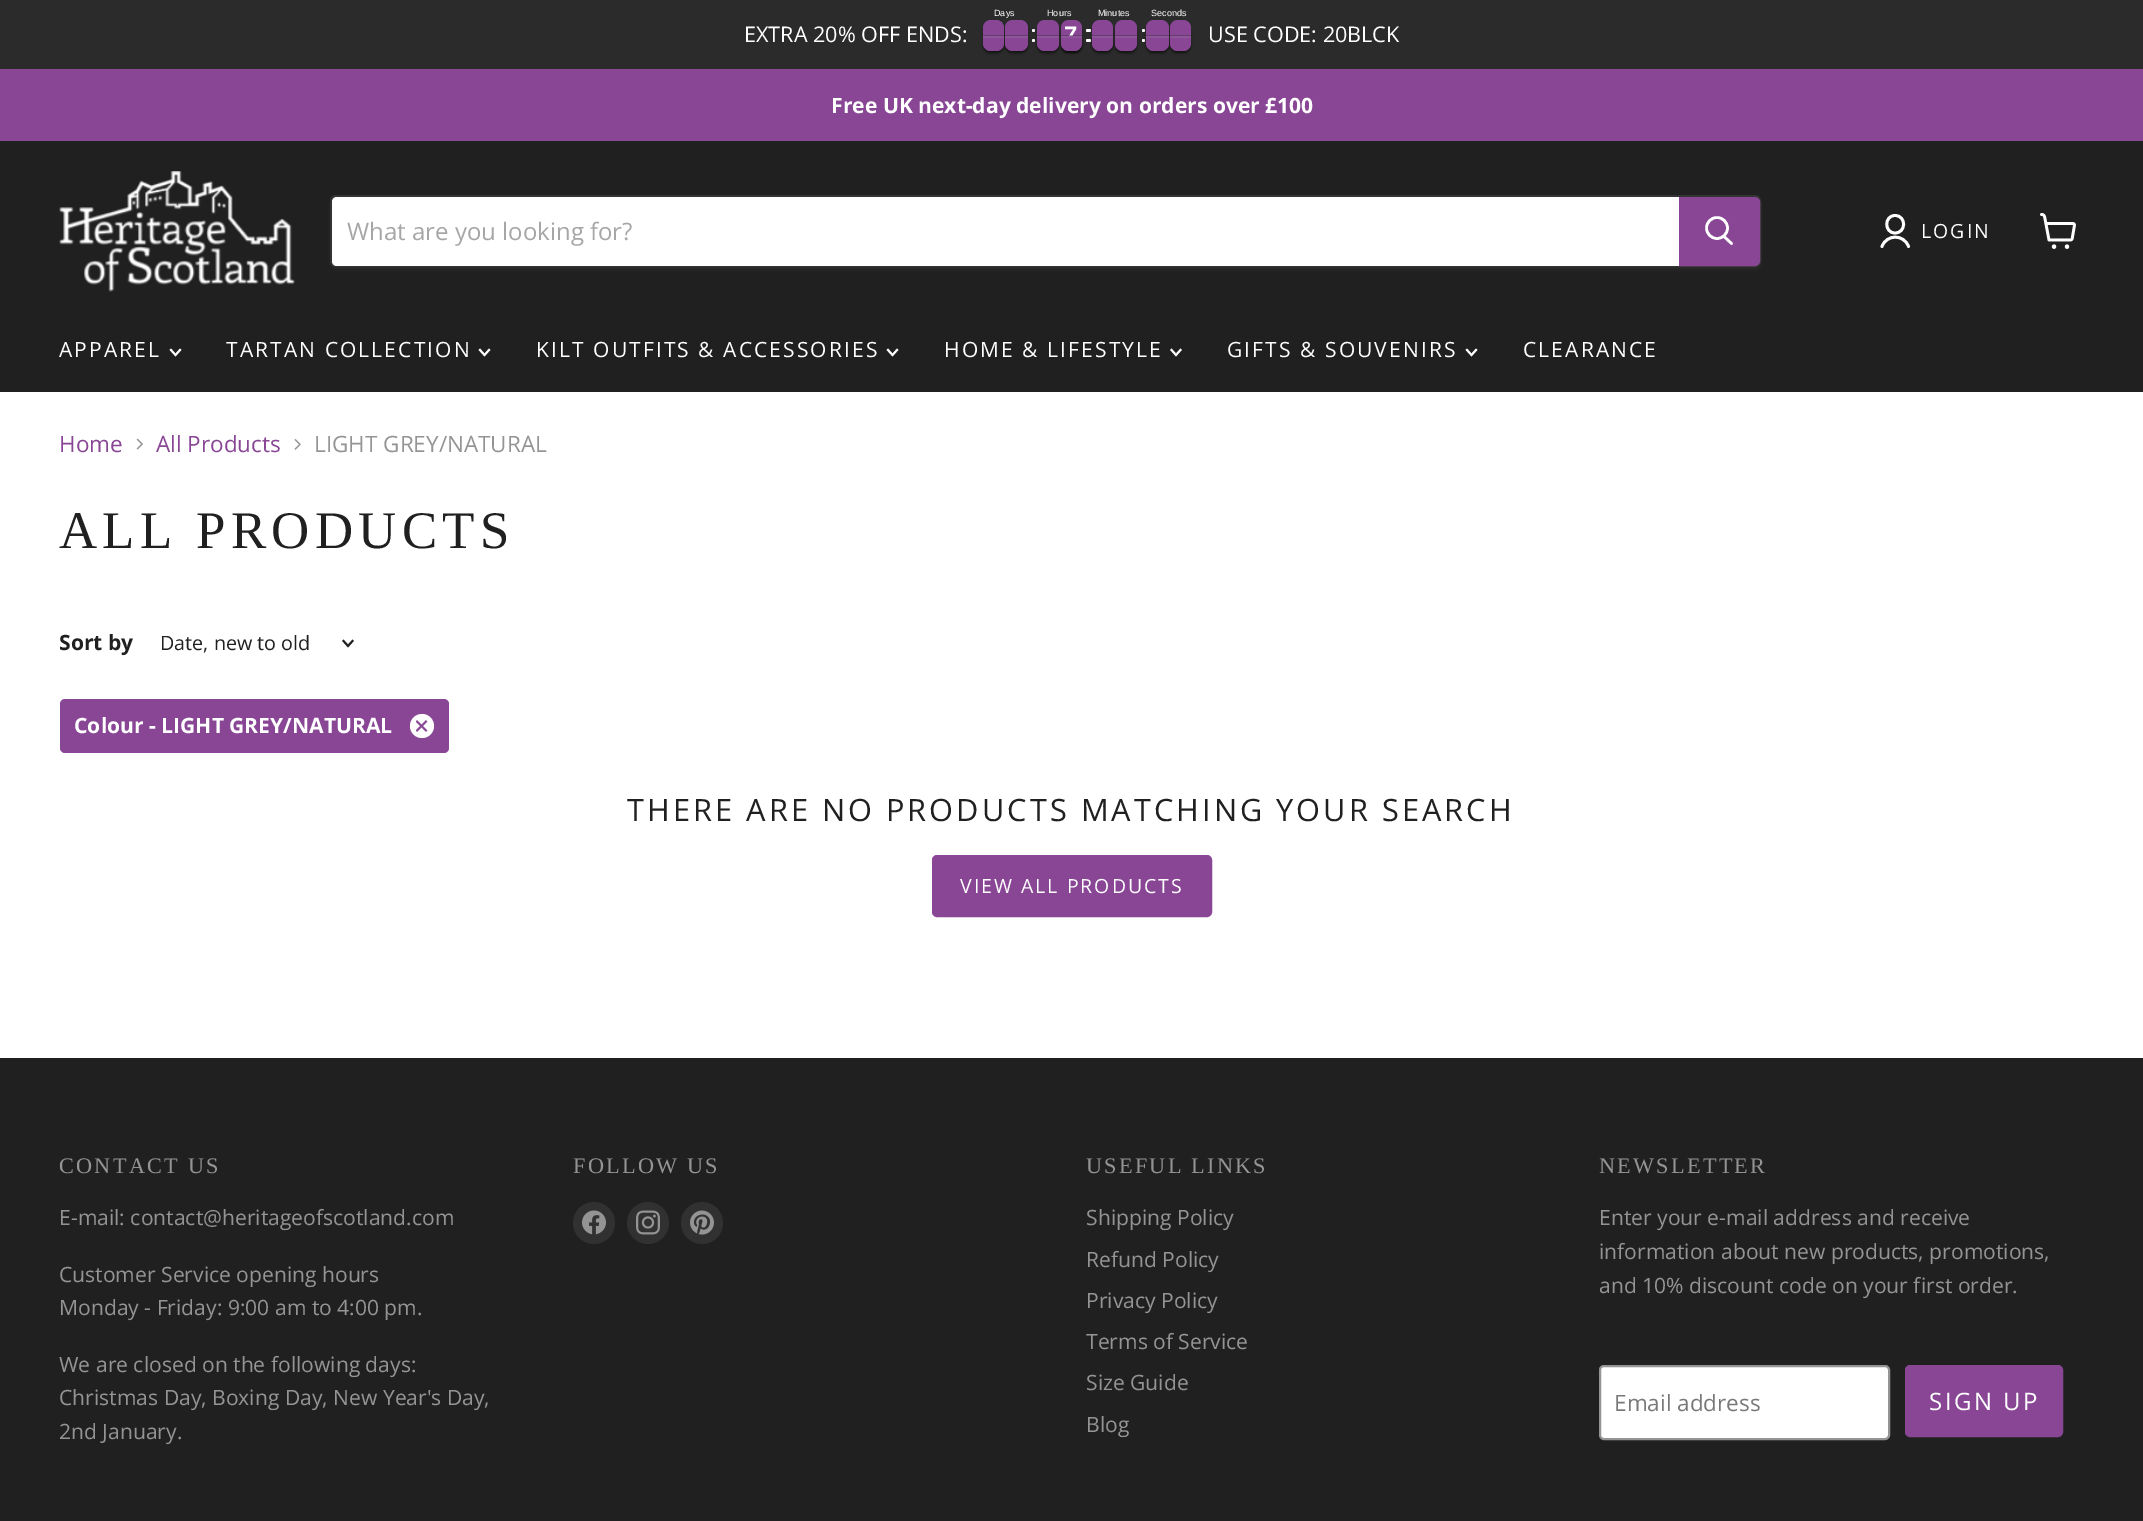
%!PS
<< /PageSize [2143 1521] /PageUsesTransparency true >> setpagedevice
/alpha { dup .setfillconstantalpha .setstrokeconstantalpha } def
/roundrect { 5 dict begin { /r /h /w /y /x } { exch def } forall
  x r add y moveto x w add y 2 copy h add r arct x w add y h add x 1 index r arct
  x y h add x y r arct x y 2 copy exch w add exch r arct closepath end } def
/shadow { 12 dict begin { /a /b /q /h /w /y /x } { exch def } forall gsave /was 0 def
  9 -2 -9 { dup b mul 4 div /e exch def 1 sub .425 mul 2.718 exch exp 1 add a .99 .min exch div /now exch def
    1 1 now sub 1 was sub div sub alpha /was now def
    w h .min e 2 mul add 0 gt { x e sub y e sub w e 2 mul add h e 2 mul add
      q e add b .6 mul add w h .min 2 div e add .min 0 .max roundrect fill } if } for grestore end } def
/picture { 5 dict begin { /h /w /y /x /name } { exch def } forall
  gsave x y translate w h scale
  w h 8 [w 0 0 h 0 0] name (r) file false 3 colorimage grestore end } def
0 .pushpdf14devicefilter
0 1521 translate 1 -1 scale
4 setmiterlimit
1 setgray
0 0 2143 1521 rectfill
0.169 setgray
0 0 2143 69 rectfill
/OpenSans-Regular [21.6 0 0 -21.6 0 0] selectfont
1 setgray
744 42 moveto (EXTRA 20% OFF ENDS:) show
0 setgray
983 23 21 31 8 2 0.24 shadow
1005 23 23 31 8 2 0.24 shadow
/LiberationSans-Regular [9 0 0 -9 0 0] selectfont
1 setgray
994 16 moveto (Days) show
0 setgray
983 38 21 15 7.5 1 0.4 shadow
1005 38 23 15 7.5 1 0.4 shadow
0.533 0.275 0.584 setrgbcolor
newpath 991 20 moveto 996 20 lineto 1000.5 20 1004 23.5 1004 28 curveto 1004 36 lineto 983 36 lineto 983 28 lineto 983 23.5 986.5 20 991 20 curveto closepath fill
0.4 alpha
0.2 setgray
983 35 21 1 rectfill
1 alpha
0.533 0.275 0.584 setrgbcolor
newpath 983 36 moveto 1004 36 lineto 1004 43.5 lineto 1004 47.5 1000.5 51 996.5 51 curveto 990.5 51 lineto 986.5 51 983 47.5 983 43.5 curveto closepath fill
0.1 alpha
0.8 setgray
983 36 21 2 rectfill
1 alpha
0.533 0.275 0.584 setrgbcolor
newpath 1013 20 moveto 1020 20 lineto 1024.5 20 1028 23.5 1028 28 curveto 1028 36 lineto 1005 36 lineto 1005 28 lineto 1005 23.5 1008.5 20 1013 20 curveto closepath fill
0.4 alpha
0.2 setgray
1005 35 23 1 rectfill
1 alpha
0.533 0.275 0.584 setrgbcolor
newpath 1005 36 moveto 1028 36 lineto 1028 43.5 lineto 1028 47.5 1024.5 51 1020.5 51 curveto 1012.5 51 lineto 1008.5 51 1005 47.5 1005 43.5 curveto closepath fill
0.1 alpha
0.8 setgray
1005 36 23 2 rectfill
1 alpha
1 setgray
newpath 1033.5 30.5 1.5 0 360 arc closepath fill
newpath 1033.5 40.5 1.5 0 360 arc closepath fill
0 setgray
1037 23 22 31 8 2 0.24 shadow
1061 23 21 31 8 2 0.24 shadow
1 setgray
1047 16 moveto (Hours) show
0 setgray
1037 38 22 15 7.5 1 0.4 shadow
1061 38 21 15 7.5 1 0.4 shadow
0.533 0.275 0.584 setrgbcolor
newpath 1045 20 moveto 1051 20 lineto 1055.5 20 1059 23.5 1059 28 curveto 1059 36 lineto 1037 36 lineto 1037 28 lineto 1037 23.5 1040.5 20 1045 20 curveto closepath fill
0.4 alpha
0.2 setgray
1037 35 22 1 rectfill
1 alpha
0.533 0.275 0.584 setrgbcolor
newpath 1037 36 moveto 1059 36 lineto 1059 43.5 lineto 1059 47.5 1055.5 51 1051.5 51 curveto 1044.5 51 lineto 1040.5 51 1037 47.5 1037 43.5 curveto closepath fill
0.1 alpha
0.8 setgray
1037 36 22 2 rectfill
1 alpha
0.533 0.275 0.584 setrgbcolor
newpath 1069 20 moveto 1074 20 lineto 1078.5 20 1082 23.5 1082 28 curveto 1082 36 lineto 1061 36 lineto 1061 28 lineto 1061 23.5 1064.5 20 1069 20 curveto closepath fill
/LiberationSans-Bold [24 0 0 -24 0 0] selectfont
1 setgray
1064 43 moveto (7) show
0.4 alpha
0.2 setgray
1061 35 21 1 rectfill
1 alpha
0 setgray
1061 38 21 15 7.5 1 0.4 shadow
0.533 0.275 0.584 setrgbcolor
newpath 1061 36 moveto 1082 36 lineto 1082 43.5 lineto 1082 47.5 1078.5 51 1074.5 51 curveto 1068.5 51 lineto 1064.5 51 1061 47.5 1061 43.5 curveto closepath fill
0.1 alpha
0.8 setgray
1061 36 21 2 rectfill
1 alpha
1 setgray
1086 29 5 3 1.5 roundrect fill
1086 39 5 3 1.5 roundrect fill
0 setgray
1092 23 21 31 8 2 0.24 shadow
1115 23 22 31 8 2 0.24 shadow
/LiberationSans-Regular [9 0 0 -9 0 0] selectfont
1 setgray
1098 16 moveto (Minutes) show
0 setgray
1092 38 21 15 7.5 1 0.4 shadow
1115 38 22 15 7.5 1 0.4 shadow
0.533 0.275 0.584 setrgbcolor
newpath 1100 20 moveto 1105 20 lineto 1109.5 20 1113 23.5 1113 28 curveto 1113 36 lineto 1092 36 lineto 1092 28 lineto 1092 23.5 1095.5 20 1100 20 curveto closepath fill
0.4 alpha
0.2 setgray
1092 35 21 1 rectfill
1 alpha
0.533 0.275 0.584 setrgbcolor
newpath 1092 36 moveto 1113 36 lineto 1113 43.5 lineto 1113 47.5 1109.5 51 1105.5 51 curveto 1099.5 51 lineto 1095.5 51 1092 47.5 1092 43.5 curveto closepath fill
0.1 alpha
0.8 setgray
1092 36 21 2 rectfill
1 alpha
0.533 0.275 0.584 setrgbcolor
newpath 1123 20 moveto 1129 20 lineto 1133.5 20 1137 23.5 1137 28 curveto 1137 36 lineto 1115 36 lineto 1115 28 lineto 1115 23.5 1118.5 20 1123 20 curveto closepath fill
0.4 alpha
0.2 setgray
1115 35 22 1 rectfill
1 alpha
0.533 0.275 0.584 setrgbcolor
newpath 1115 36 moveto 1137 36 lineto 1137 43.5 lineto 1137 47.5 1133.5 51 1129.5 51 curveto 1122.5 51 lineto 1118.5 51 1115 47.5 1115 43.5 curveto closepath fill
0.1 alpha
0.8 setgray
1115 36 22 2 rectfill
1 alpha
1 setgray
newpath 1143.5 30.5 1.5 0 360 arc closepath fill
newpath 1143.5 40.5 1.5 0 360 arc closepath fill
0 setgray
1146 23 23 31 8 2 0.24 shadow
1170 23 21 31 8 2 0.24 shadow
1 setgray
1151 16 moveto (Seconds) show
0 setgray
1146 38 23 15 7.5 1 0.4 shadow
1170 38 21 15 7.5 1 0.4 shadow
0.533 0.275 0.584 setrgbcolor
newpath 1154 20 moveto 1161 20 lineto 1165.5 20 1169 23.5 1169 28 curveto 1169 36 lineto 1146 36 lineto 1146 28 lineto 1146 23.5 1149.5 20 1154 20 curveto closepath fill
0.4 alpha
0.2 setgray
1146 35 23 1 rectfill
1 alpha
0.533 0.275 0.584 setrgbcolor
newpath 1146 36 moveto 1169 36 lineto 1169 43.5 lineto 1169 47.5 1165.5 51 1161.5 51 curveto 1153.5 51 lineto 1149.5 51 1146 47.5 1146 43.5 curveto closepath fill
0.1 alpha
0.8 setgray
1146 36 23 2 rectfill
1 alpha
0.533 0.275 0.584 setrgbcolor
newpath 1178 20 moveto 1183 20 lineto 1187.5 20 1191 23.5 1191 28 curveto 1191 36 lineto 1170 36 lineto 1170 28 lineto 1170 23.5 1173.5 20 1178 20 curveto closepath fill
0.4 alpha
0.2 setgray
1170 35 21 1 rectfill
1 alpha
0.533 0.275 0.584 setrgbcolor
newpath 1170 36 moveto 1191 36 lineto 1191 43.5 lineto 1191 47.5 1187.5 51 1183.5 51 curveto 1177.5 51 lineto 1173.5 51 1170 47.5 1170 43.5 curveto closepath fill
0.1 alpha
0.8 setgray
1170 36 21 2 rectfill
/OpenSans-Regular [21.6 0 0 -21.6 0 0] selectfont
1 alpha
1 setgray
1208 42 moveto (USE CODE: 20BLCK) show
0.533 0.275 0.584 setrgbcolor
0 69 2143 72 rectfill
/OpenSans-Bold [21.1 0 0 -21.1 0 0] selectfont
1 setgray
831 113 moveto (Free UK next-day delivery on orders over £100) show
0.125 setgray
0 141 2143 251 rectfill
(img1.rgb) 59 171 236 121 picture
0.502 setgray
330 198 1431 72 6 2 0.11 shadow
0.2 setgray
2 setlinewidth
331 196 1429 70 5 roundrect stroke
1 setgray
newpath 337 197 moveto 1679 197 lineto 1679 266 lineto 337 266 lineto 334 266 332 264 332 261 curveto 332 202 lineto 332 199 334 197 337 197 curveto closepath fill
/OpenSans-Regular [24 0 0 -24 0 0] selectfont
0.651 setgray
347 240 moveto (What are you looking for?) show
0.533 0.275 0.584 setrgbcolor
newpath 1680 198 moveto 1755 198 lineto 1757 198 1759 200 1759 202 curveto 1759 261 lineto 1759 263 1757 265 1755 265 curveto 1680 265 lineto closepath gsave fill grestore
stroke
1 setgray
2.6 setlinewidth
1 setlinecap
newpath 1731.5 243.5 moveto 1724 236.5 lineto stroke
0 setlinecap
newpath 1717 228 10.5 0 360 arc closepath stroke
2.8 setlinewidth
1 setlinecap
1 setlinejoin
newpath 1895 233 moveto 1906.5 233 1906.5 215.5 1895 215.5 curveto 1884 215.5 1884 233 1895 233 curveto closepath 1908.5 246.5 moveto 1904 234 1886.5 234 1882 246.5 curveto stroke
/OpenSans-Regular [19.5 0 0 -19.5 0 0] selectfont
1921 238 moveto 2 0 (LOGIN) ashow
(img2.rgb) 2040 213 36 36 picture
/OpenSans-Regular [21 0 0 -21 0 0] selectfont
59 357 moveto 2.1 0 (APPAREL) ashow
1.9 setlinewidth
2 setlinecap
0 setlinejoin
newpath 175.5 355 moveto 180 350 lineto 175.5 355 moveto 171 350 lineto stroke
226 357 moveto 2.1 0 (TARTAN COLLECTION) ashow
newpath 484.5 355 moveto 489 350 lineto 484.5 355 moveto 480 350 lineto stroke
536 357 moveto 2.1 0 (KILT OUTFITS & ACCESSORIES) ashow
newpath 892.5 355 moveto 897 350 lineto 892.5 355 moveto 888 350 lineto stroke
944 357 moveto 2.1 0 (HOME & LIFESTYLE) ashow
newpath 1176 355 moveto 1180.5 350 lineto 1176 355 moveto 1171.5 350 lineto stroke
1227 357 moveto 2.1 0 (GIFTS & SOUVENIRS) ashow
newpath 1471.5 355 moveto 1476 350 lineto 1471.5 355 moveto 1467 350 lineto stroke
1523 357 moveto 2.1 0 (CLEARANCE) ashow
/OpenSans-Regular [22.5 0 0 -22.5 0 0] selectfont
0.533 0.275 0.584 setrgbcolor
59 452 moveto (Home) show
(img3.rgb) 136 438 7 12 picture
156 452 moveto (All Products) show
(img4.rgb) 294 439 7 11 picture
0.58 setgray
314 452 moveto (LIGHT GREY/NATURAL) show
/LiberationSerif-Regular [52.9 0 0 -52.9 0 0] selectfont
0.125 setgray
59 548 moveto 5.25 0 (ALL PRODUCTS) ashow
/OpenSans-Bold [21.1 0 0 -21.1 0 0] selectfont
59 650 moveto (Sort by) show
/OpenSans-Regular [19.75 0 0 -19.75 0 0] selectfont
160 650 moveto (Date, new to old) show
newpath 348 646 moveto 352.5 641 lineto 348 646 moveto 343.5 641 lineto stroke
0.533 0.275 0.584 setrgbcolor
60 699 389 54 5 roundrect fill
/OpenSans-Bold [21.1 0 0 -21.1 0 0] selectfont
1 setgray
74 733 moveto (Colour - LIGHT GREY/NATURAL) show
newpath 422 726 12 0 360 arc closepath fill
(img5.rgb) 416 720 12 12 picture
/OpenSans-Regular [30.75 0 0 -30.75 0 0] selectfont
0.125 setgray
627 821 moveto 3.05 0 (THERE ARE NO PRODUCTS MATCHING YOUR SEARCH) ashow
0.533 0.275 0.584 setrgbcolor
933 856 278 60 4 roundrect gsave fill grestore
2 setlinewidth
0 setlinecap
stroke
/OpenSans-Regular [19.5 0 0 -19.5 0 0] selectfont
1 setgray
960 893 moveto 2 0 (VIEW ALL PRODUCTS) ashow
0.125 setgray
0 1058 2143 463 rectfill
/LiberationSerif-Regular [22.25 0 0 -22.25 0 0] selectfont
0.58 setgray
59 1173 moveto 2.25 0 (CONTACT US) ashow
/OpenSans-Regular [21.1 0 0 -21.1 0 0] selectfont
59 1225 moveto (E-mail: contact@heritageofscotland.com) show
59 1282 moveto (Customer Service opening hours) show
59 1315 moveto (Monday - Friday: 9:00 am to 4:00 pm.) show
59 1372 moveto (We are closed on the following days:) show
59 1405 moveto (Christmas Day, Boxing Day, New Year's Day,) show
59 1439 moveto (2nd January.) show
/LiberationSerif-Regular [22.25 0 0 -22.25 0 0] selectfont
573 1173 moveto 2.25 0 (FOLLOW US) ashow
0.192 setgray
newpath 594 1223 21 0 360 arc closepath fill
(img6.rgb) 582 1210 24 25 picture
newpath 648 1223 21 0 360 arc closepath fill
(img7.rgb) 636 1210 24 25 picture
newpath 702 1223 21 0 360 arc closepath fill
(img8.rgb) 690 1210 24 25 picture
0.58 setgray
1086 1173 moveto 2.25 0 (USEFUL LINKS) ashow
/OpenSans-Regular [21.1 0 0 -21.1 0 0] selectfont
1086 1225 moveto (Shipping Policy) show
1086 1267 moveto (Refund Policy) show
1086 1308 moveto (Privacy Policy) show
1086 1349 moveto (Terms of Service) show
1086 1390 moveto (Size Guide) show
1086 1432 moveto (Blog) show
/LiberationSerif-Regular [22.25 0 0 -22.25 0 0] selectfont
1599 1173 moveto 2.25 0 (NEWSLETTER) ashow
/OpenSans-Regular [21.1 0 0 -21.1 0 0] selectfont
1599 1225 moveto (Enter your e-mail address and receive) show
1599 1259 moveto (information about new products, promotions,) show
1599 1293 moveto (and 10% discount code on your first order.) show
1 setgray
1600 1366 289 73 4 roundrect gsave fill grestore
0.58 setgray
stroke
/OpenSans-Regular [22.5 0 0 -22.5 0 0] selectfont
0.475 setgray
1614 1411 moveto (Email address) show
0.533 0.275 0.584 setrgbcolor
1906 1366 156 70 4 roundrect gsave fill grestore
stroke
/OpenSans-Regular [24 0 0 -24 0 0] selectfont
1 setgray
1929 1410 moveto 2.5 0 (SIGN UP) ashow
.poppdf14devicefilter showpage
